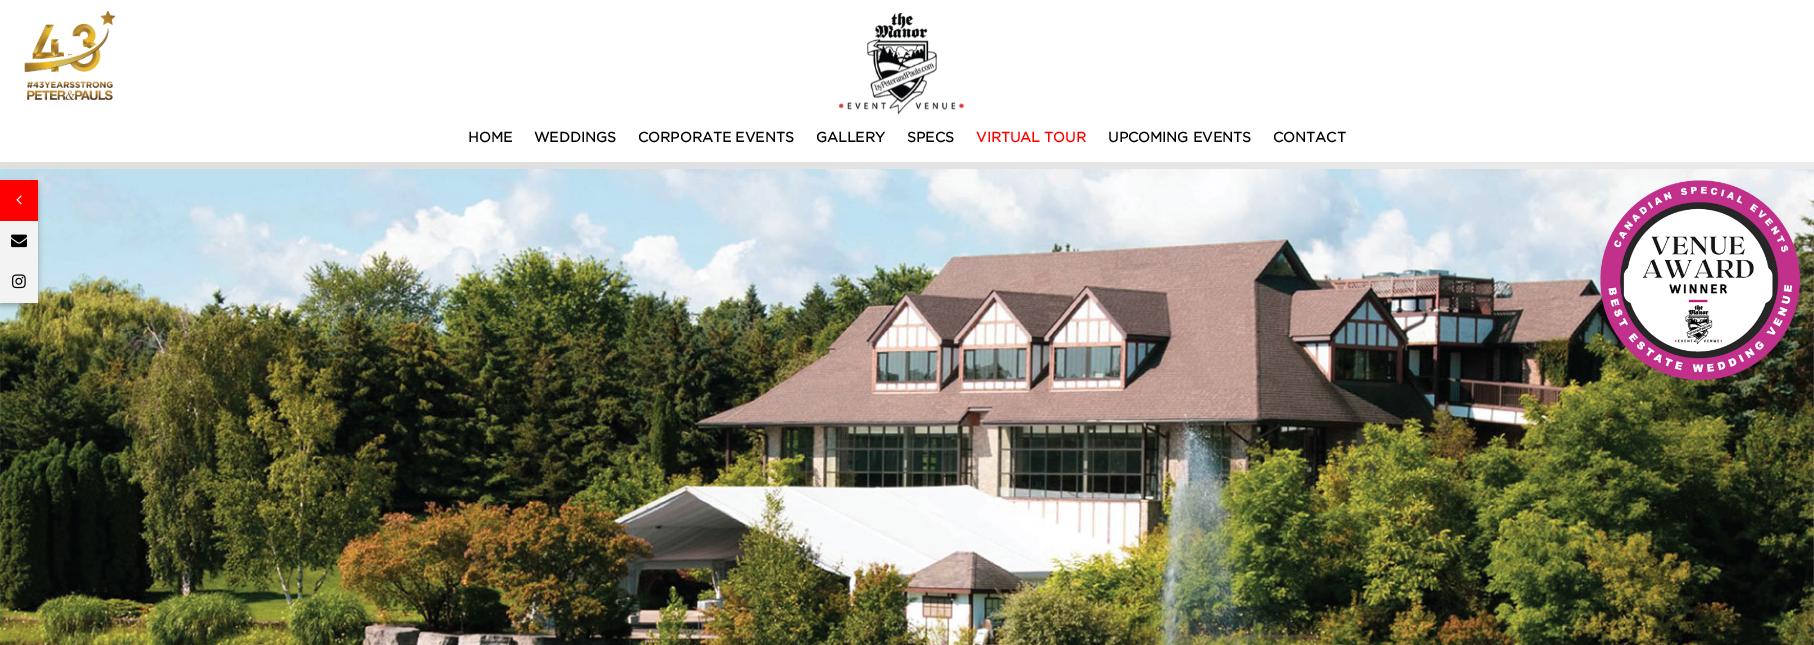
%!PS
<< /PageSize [1814 645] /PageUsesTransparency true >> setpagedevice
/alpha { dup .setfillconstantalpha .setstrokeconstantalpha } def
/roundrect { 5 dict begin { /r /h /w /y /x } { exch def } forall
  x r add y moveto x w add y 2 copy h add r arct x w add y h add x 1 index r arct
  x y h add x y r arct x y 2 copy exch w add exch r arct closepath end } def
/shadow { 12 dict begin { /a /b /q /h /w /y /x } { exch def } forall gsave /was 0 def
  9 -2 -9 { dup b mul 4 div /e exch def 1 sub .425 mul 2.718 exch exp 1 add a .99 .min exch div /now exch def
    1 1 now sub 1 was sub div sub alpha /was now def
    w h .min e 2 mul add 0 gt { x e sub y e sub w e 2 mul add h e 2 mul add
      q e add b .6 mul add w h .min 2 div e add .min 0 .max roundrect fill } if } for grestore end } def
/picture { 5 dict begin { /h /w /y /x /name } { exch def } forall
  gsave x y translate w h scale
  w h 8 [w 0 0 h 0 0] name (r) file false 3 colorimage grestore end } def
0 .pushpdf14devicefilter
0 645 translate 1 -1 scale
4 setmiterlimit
1 setgray
0 0 1814 645 rectfill
(img1.rgb) 24 10 92 90 picture
(img2.rgb) 839 13 125 102 picture
(img3.rgb) 0 162 1814 7 picture
/Gotham-Bold [14 0 0 -14 0 0] selectfont
0 setgray
468 142 moveto (HOME) show
534 142 moveto (WEDDINGS) show
638 142 moveto (CORPORATE EVENTS) show
816 142 moveto (GALLERY) show
907 142 moveto (SPECS) show
1 0 0 setrgbcolor
976 142 moveto (VIRTUAL TOUR) show
0 setgray
1108 142 moveto (UPCOMING EVENTS) show
1273 142 moveto (CONTACT) show
(img4.rgb) 0 169 1814 476 picture
0 183 38 123 0 3 0.3 shadow
0.953 setgray
0 221 38 82 rectfill
1 0 0 setrgbcolor
0 180 38 41 rectfill
(img5.rgb) 16 195 6 10 picture
(img6.rgb) 11 234 16 14 picture
(img7.rgb) 12 274 14 15 picture
(img8.rgb) 1600 180 200 200 picture
.poppdf14devicefilter showpage
